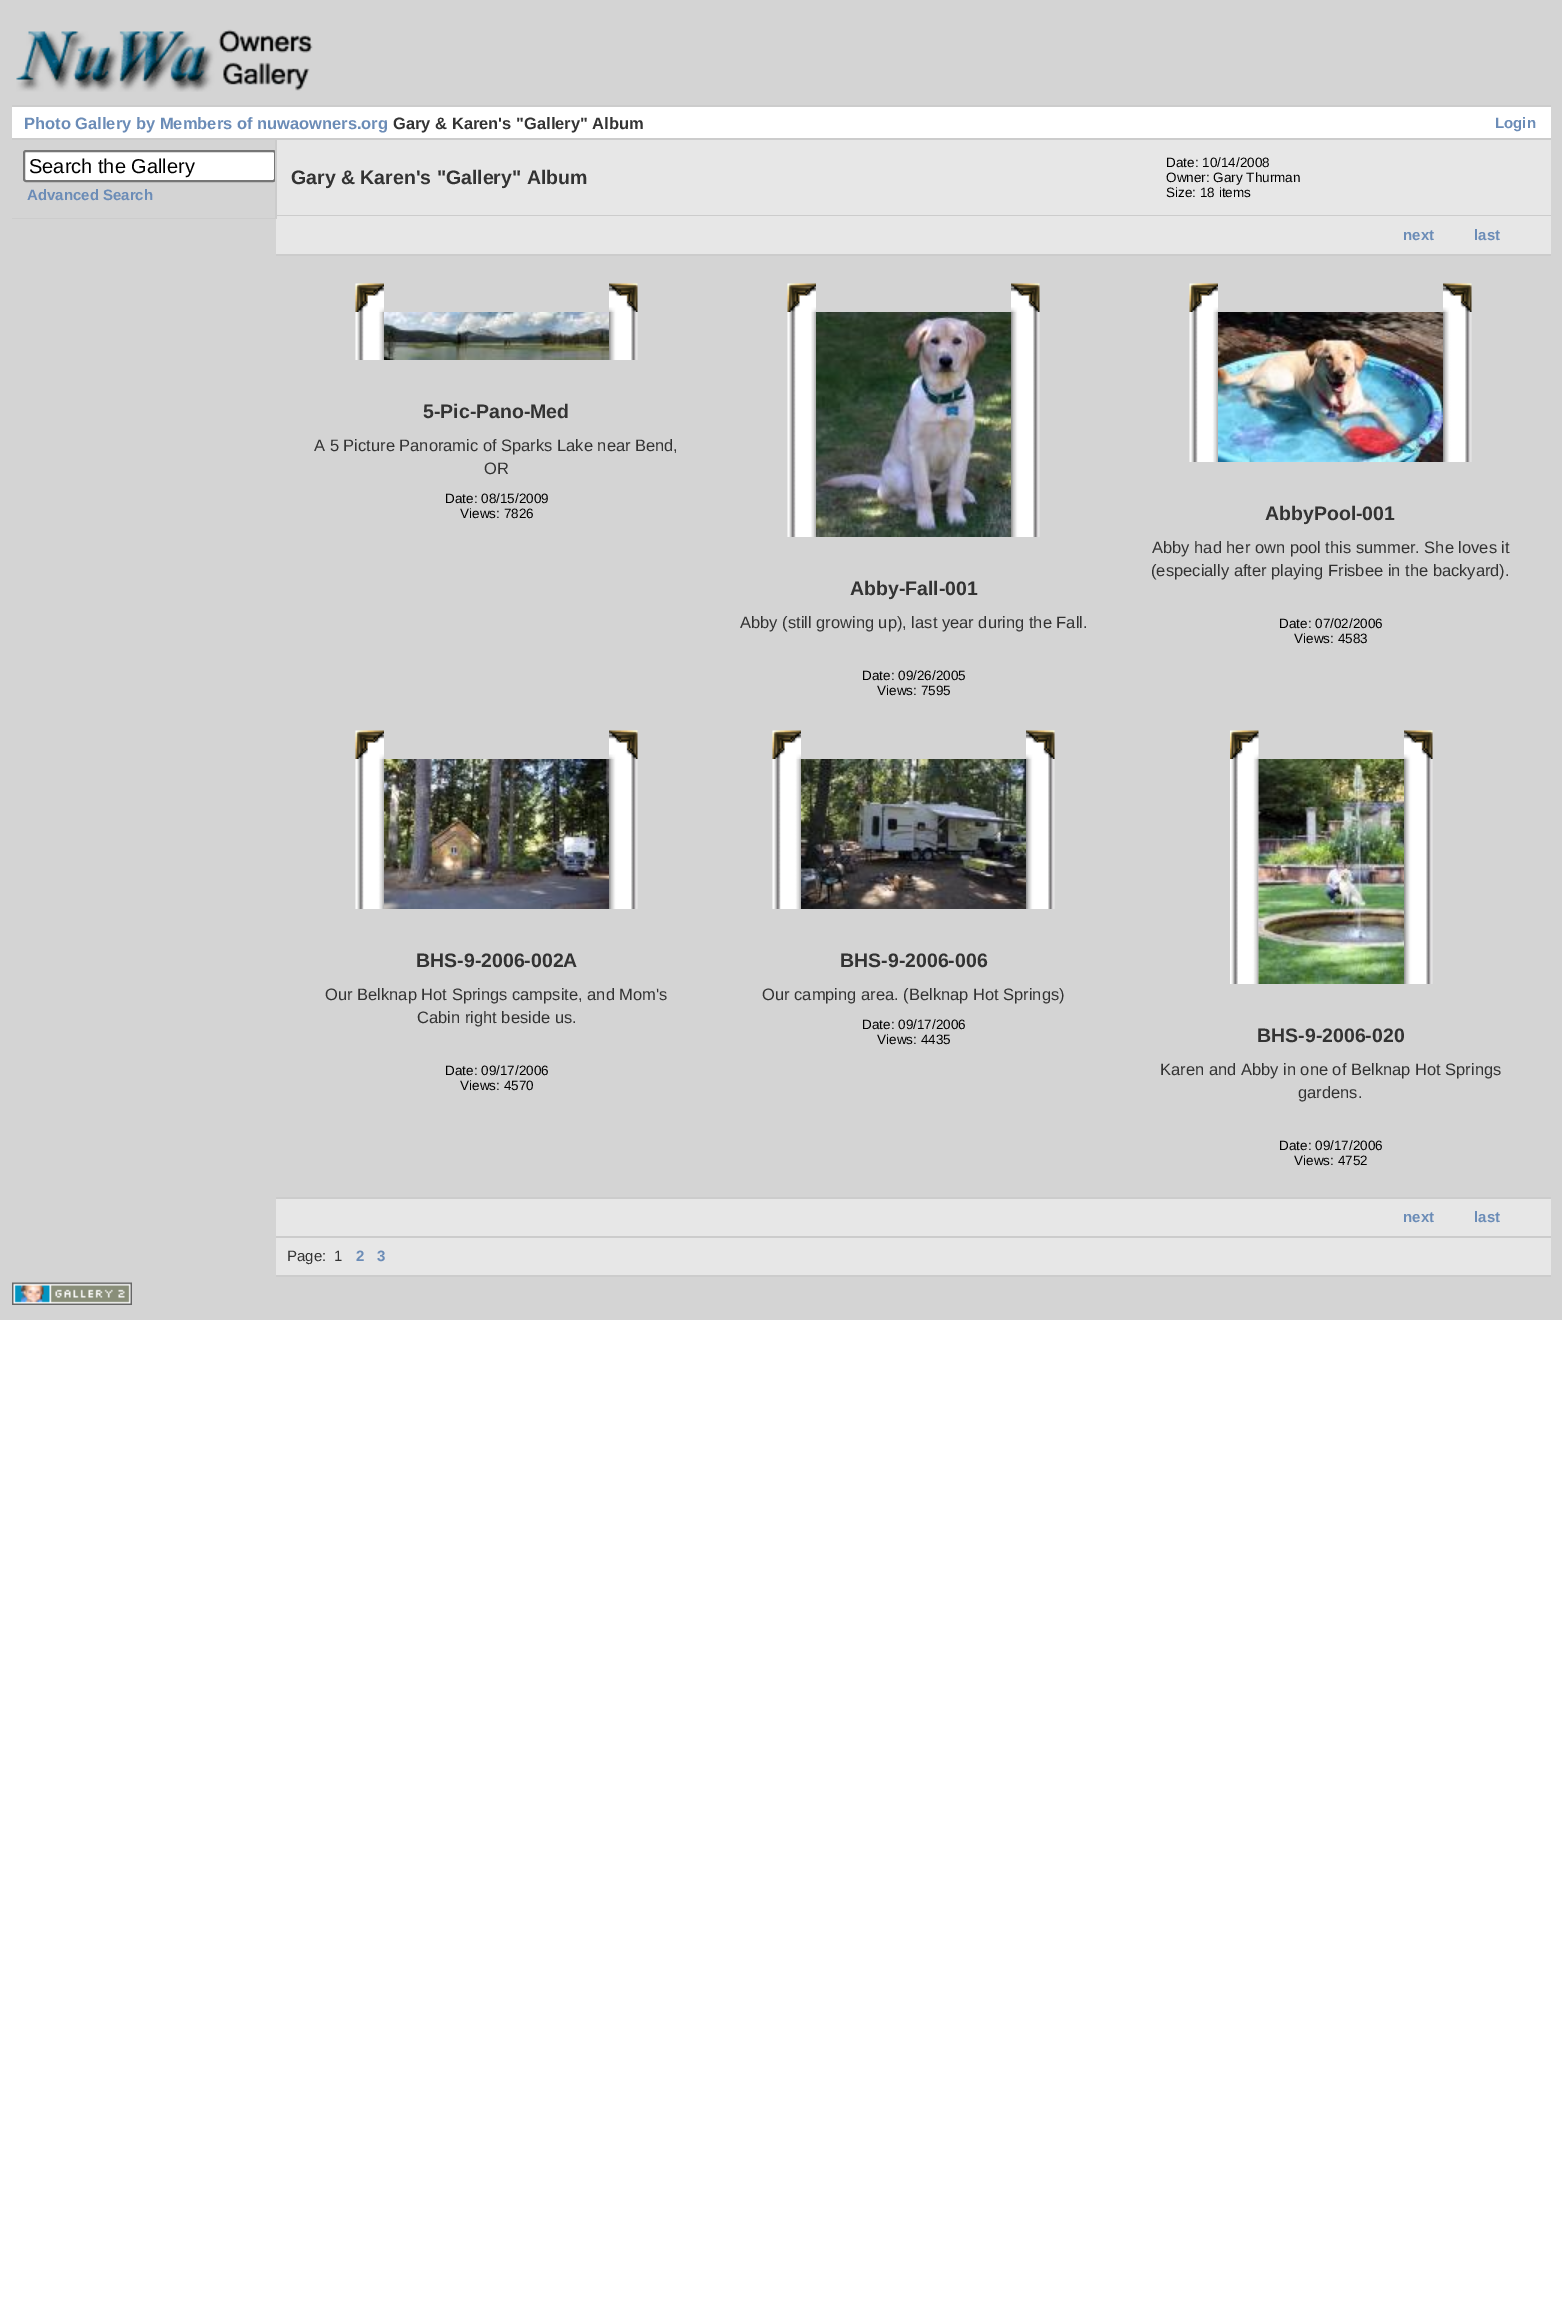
%!PS
<< /PageSize [1562 2305] >> setpagedevice
/roundrect { 5 dict begin { /r /h /w /y /x } { exch def } forall
  x r add y moveto x w add y 2 copy h add r arct x w add y h add x 1 index r arct
  x y h add x y r arct x y 2 copy exch w add exch r arct closepath end } def
/picture { 5 dict begin { /h /w /y /x /name } { exch def } forall
  gsave x y translate w h scale
  w h 8 [w 0 0 h 0 0] name (r) file false 3 colorimage grestore end } def
0 2305 translate 1 -1 scale
4 setmiterlimit
1 setgray
0 0 1562 2305 rectfill
0.831 setgray
0 0 1562 1320 rectfill
(img1.rgb) 16 29 297 63 picture
0.8 setgray
12 105 1539 2 rectfill
12 138 1539 2 rectfill
1 setgray
12 107 1539 31 rectfill
/LiberationSans-Bold [16.5 0 0 -16.5 0 0] selectfont
0.42 0.549 0.718 setrgbcolor
24 129 moveto (Photo Gallery by Members of nuwaowners.org) show
0.2 setgray
393 129 moveto (Gary & Karen's "Gallery" Album) show
/LiberationSans-Bold [15 0 0 -15 0 0] selectfont
0.42 0.549 0.718 setrgbcolor
1495 128 moveto (Login) show
0.8 setgray
276 215 1275 1 rectfill
0.906 setgray
276 216 1275 38 rectfill
0.8 setgray
275 140 2 79 rectfill
12 218 263 1 rectfill
gsave
12 140 263 79 rectclip
1 setgray
24 151 251 30 2 roundrect gsave fill grestore
0.463 setgray
2 setlinewidth
stroke
grestore
/LiberationSans-Regular [20 0 0 -20 0 0] selectfont
0 setgray
29 173 moveto (Search the Gallery) show
/LiberationSans-Bold [15 0 0 -15 0 0] selectfont
0.42 0.549 0.718 setrgbcolor
27 200 moveto (Advanced Search) show
0.906 setgray
277 140 1274 75 rectfill
/LiberationSans-Bold [19.5 0 0 -19.5 0 0] selectfont
0.2 setgray
291 184 moveto (Gary & Karen's "Gallery" Album) show
/LiberationSans-Regular [13.5 0 0 -13.5 0 0] selectfont
0 setgray
1166 167 moveto (Date: 10/14/2008) show
1166 182 moveto (Owner: Gary Thurman) show
1166 197 moveto (Size: 18 items) show
0.8 setgray
276 254 1275 2 rectfill
/LiberationSans-Bold [15 0 0 -15 0 0] selectfont
0.42 0.549 0.718 setrgbcolor
1403 240 moveto (next) show
1474 240 moveto (last) show
0.8 setgray
276 1197 1275 2 rectfill
(img2.rgb) 355 283 29 29 picture
(img3.rgb) 609 283 29 29 picture
(img4.rgb) 355 312 29 48 picture
(img5.rgb) 384 312 225 48 picture
(img6.rgb) 609 312 29 48 picture
/LiberationSans-Bold [19.5 0 0 -19.5 0 0] selectfont
0.2 setgray
423 418 moveto (5-Pic-Pano-Med) show
/LiberationSans-Regular [16.5 0 0 -16.5 0 0] selectfont
314 451 moveto (A 5 Picture Panoramic of Sparks Lake near Bend,) show
484 474 moveto (OR) show
/LiberationSans-Regular [13.5 0 0 -13.5 0 0] selectfont
0 setgray
445 503 moveto (Date: 08/15/2009) show
460 518 moveto (Views: 7826) show
(img7.rgb) 787 283 29 29 picture
(img3.rgb) 1011 283 29 29 picture
(img8.rgb) 787 312 29 225 picture
(img9.rgb) 816 312 195 225 picture
(img10.rgb) 1011 312 29 225 picture
/LiberationSans-Bold [19.5 0 0 -19.5 0 0] selectfont
0.2 setgray
850 595 moveto (Abby-Fall-001) show
/LiberationSans-Regular [16.5 0 0 -16.5 0 0] selectfont
740 628 moveto (Abby \(still growing up\), last year during the Fall.) show
/LiberationSans-Regular [13.5 0 0 -13.5 0 0] selectfont
0 setgray
862 680 moveto (Date: 09/26/2005) show
877 695 moveto (Views: 7595) show
(img2.rgb) 1189 283 29 29 picture
(img3.rgb) 1443 283 29 29 picture
(img11.rgb) 1189 312 29 150 picture
(img12.rgb) 1218 312 225 150 picture
(img13.rgb) 1443 312 29 150 picture
/LiberationSans-Bold [19.5 0 0 -19.5 0 0] selectfont
0.2 setgray
1265 520 moveto (AbbyPool-001) show
/LiberationSans-Regular [16.5 0 0 -16.5 0 0] selectfont
1152 553 moveto (Abby had her own pool this summer. She loves it) show
1151 576 moveto (\(especially after playing Frisbee in the backyard\).) show
/LiberationSans-Regular [13.5 0 0 -13.5 0 0] selectfont
0 setgray
1279 628 moveto (Date: 07/02/2006) show
1294 643 moveto (Views: 4583) show
(img2.rgb) 355 730 29 29 picture
(img3.rgb) 609 730 29 29 picture
(img11.rgb) 355 759 29 150 picture
(img14.rgb) 384 759 225 150 picture
(img15.rgb) 609 759 29 150 picture
/LiberationSans-Bold [19.5 0 0 -19.5 0 0] selectfont
0.2 setgray
416 967 moveto (BHS-9-2006-002A) show
/LiberationSans-Regular [16.5 0 0 -16.5 0 0] selectfont
325 1000 moveto (Our Belknap Hot Springs campsite, and Mom's) show
417 1023 moveto (Cabin right beside us.) show
/LiberationSans-Regular [13.5 0 0 -13.5 0 0] selectfont
0 setgray
445 1075 moveto (Date: 09/17/2006) show
460 1090 moveto (Views: 4570) show
(img7.rgb) 772 730 29 29 picture
(img16.rgb) 1026 730 29 29 picture
(img17.rgb) 772 759 29 150 picture
(img18.rgb) 801 759 225 150 picture
(img19.rgb) 1026 759 29 150 picture
/LiberationSans-Bold [19.5 0 0 -19.5 0 0] selectfont
0.2 setgray
840 967 moveto (BHS-9-2006-006) show
/LiberationSans-Regular [16.5 0 0 -16.5 0 0] selectfont
762 1000 moveto (Our camping area. \(Belknap Hot Springs\)) show
/LiberationSans-Regular [13.5 0 0 -13.5 0 0] selectfont
0 setgray
862 1029 moveto (Date: 09/17/2006) show
877 1044 moveto (Views: 4435) show
(img20.rgb) 1230 730 29 29 picture
(img3.rgb) 1404 730 29 29 picture
(img21.rgb) 1230 759 29 225 picture
(img22.rgb) 1258 759 146 225 picture
(img10.rgb) 1404 759 29 225 picture
/LiberationSans-Bold [19.5 0 0 -19.5 0 0] selectfont
0.2 setgray
1257 1042 moveto (BHS-9-2006-020) show
/LiberationSans-Regular [16.5 0 0 -16.5 0 0] selectfont
1160 1075 moveto (Karen and Abby in one of Belknap Hot Springs) show
1298 1098 moveto (gardens.) show
/LiberationSans-Regular [13.5 0 0 -13.5 0 0] selectfont
0 setgray
1279 1150 moveto (Date: 09/17/2006) show
1294 1165 moveto (Views: 4752) show
0.906 setgray
276 1199 1275 37 rectfill
0.8 setgray
276 1236 1275 2 rectfill
/LiberationSans-Bold [15 0 0 -15 0 0] selectfont
0.42 0.549 0.718 setrgbcolor
1403 1222 moveto (next) show
1474 1222 moveto (last) show
0.906 setgray
276 1238 1275 37 rectfill
0.8 setgray
276 1275 1275 2 rectfill
/LiberationSans-Regular [15 0 0 -15 0 0] selectfont
0.2 setgray
287 1261 moveto (Page:) show
334 1261 moveto (1) show
/LiberationSans-Bold [15 0 0 -15 0 0] selectfont
0.42 0.549 0.718 setrgbcolor
356 1261 moveto (2) show
377 1261 moveto (3) show
(img23.rgb) 12 1282 120 23 picture
showpage
